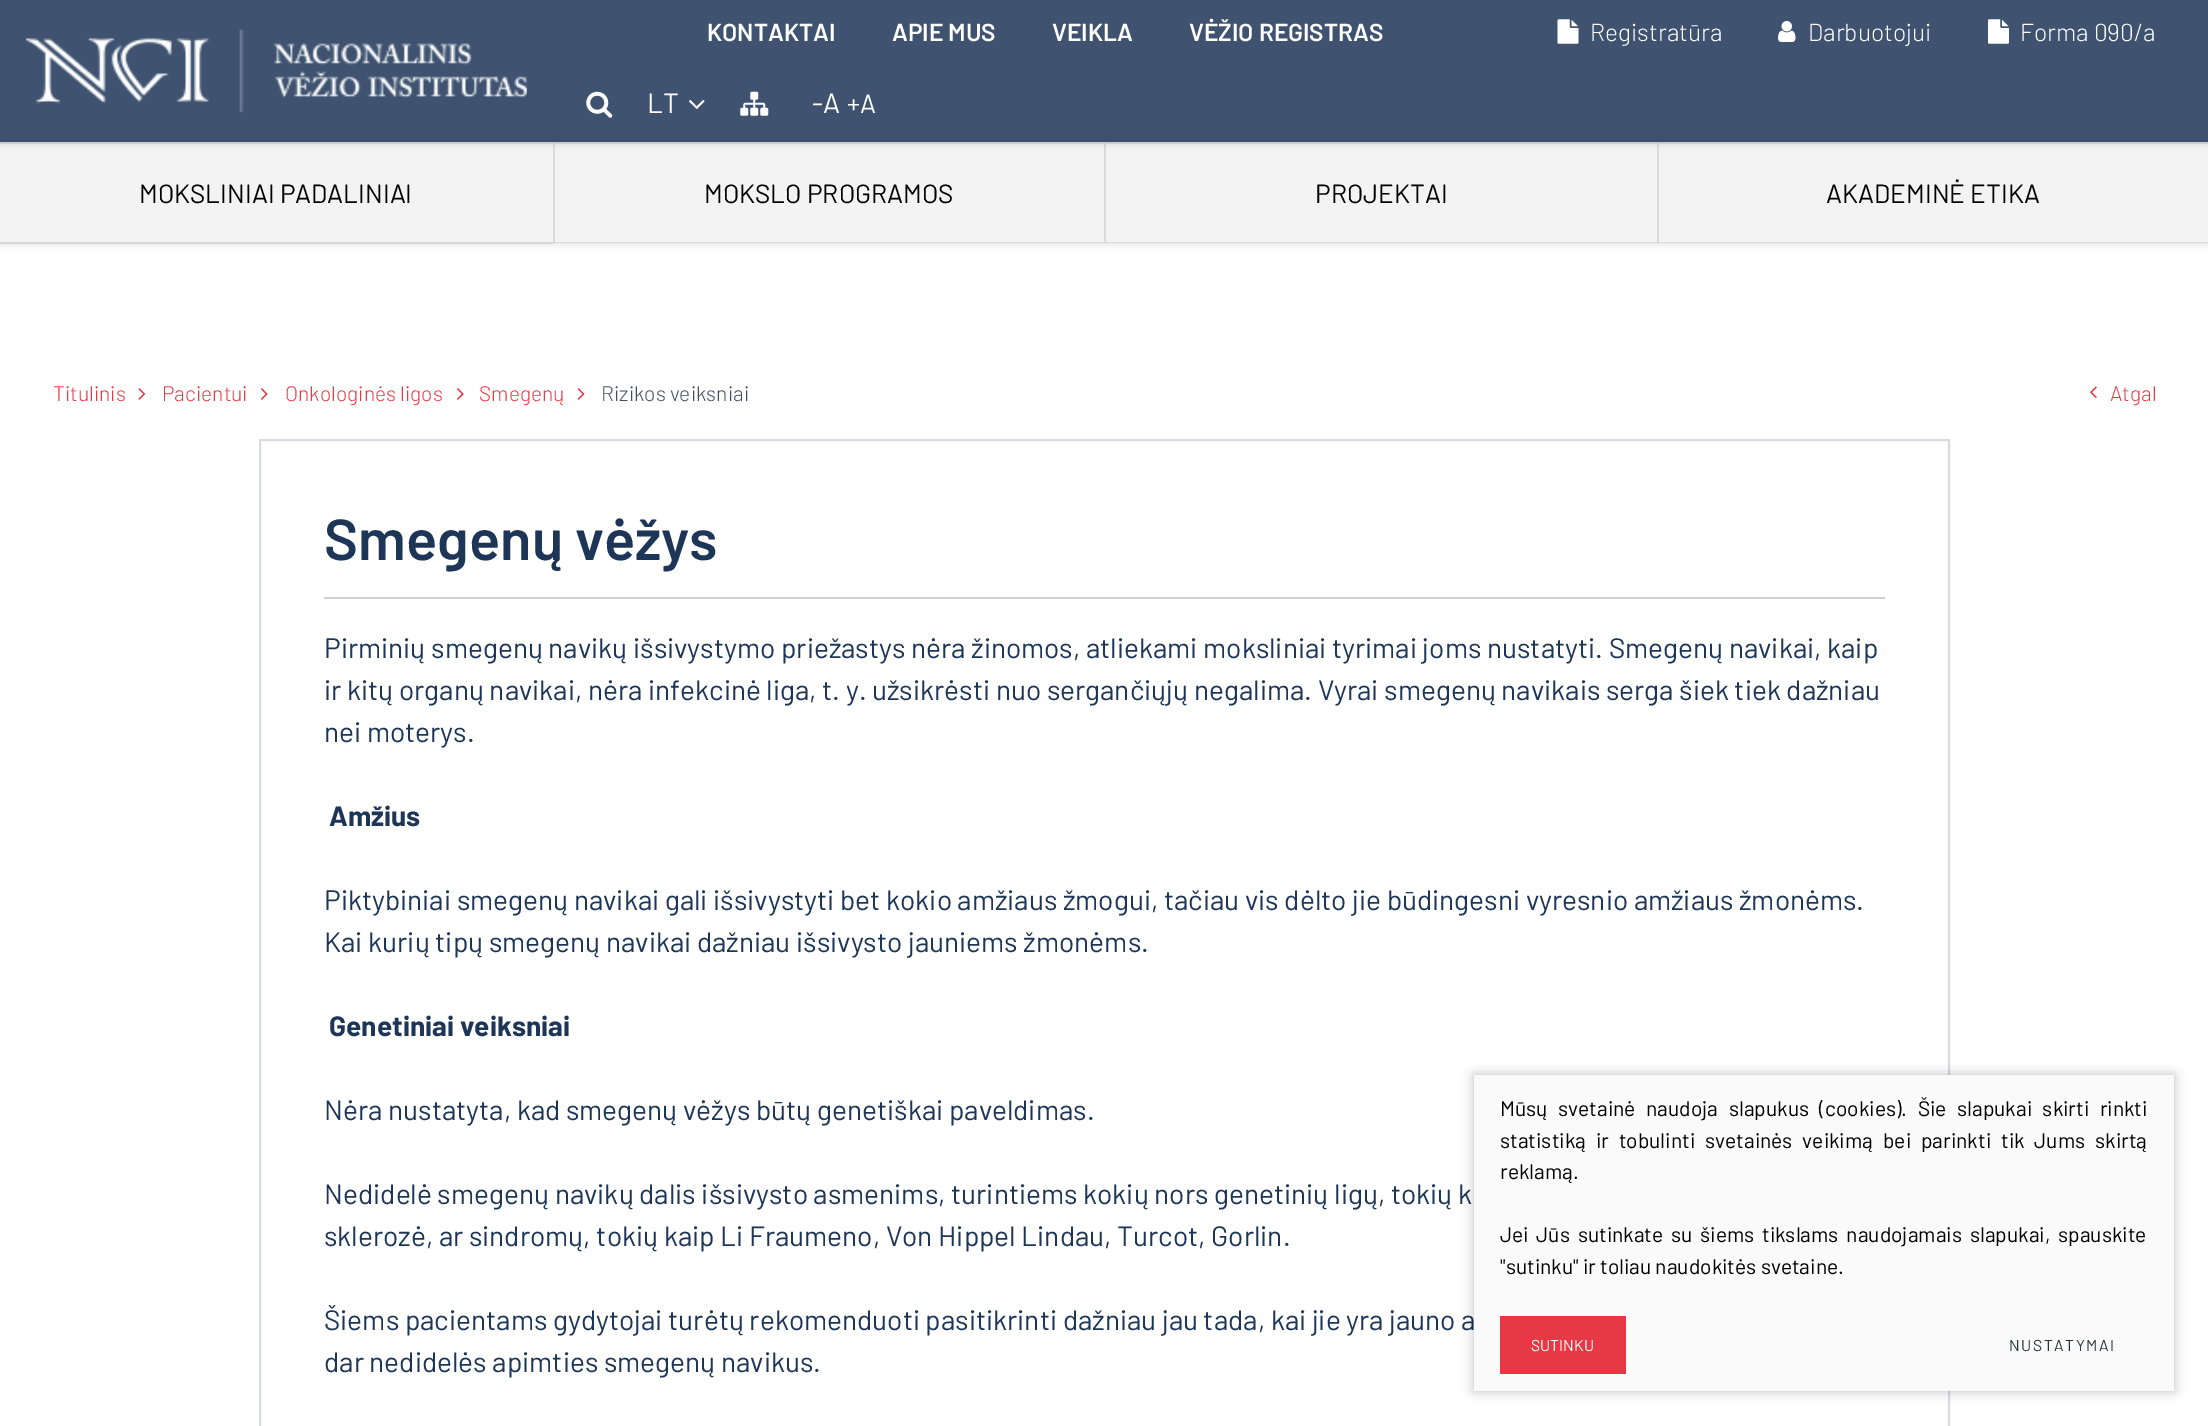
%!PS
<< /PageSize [2208 1426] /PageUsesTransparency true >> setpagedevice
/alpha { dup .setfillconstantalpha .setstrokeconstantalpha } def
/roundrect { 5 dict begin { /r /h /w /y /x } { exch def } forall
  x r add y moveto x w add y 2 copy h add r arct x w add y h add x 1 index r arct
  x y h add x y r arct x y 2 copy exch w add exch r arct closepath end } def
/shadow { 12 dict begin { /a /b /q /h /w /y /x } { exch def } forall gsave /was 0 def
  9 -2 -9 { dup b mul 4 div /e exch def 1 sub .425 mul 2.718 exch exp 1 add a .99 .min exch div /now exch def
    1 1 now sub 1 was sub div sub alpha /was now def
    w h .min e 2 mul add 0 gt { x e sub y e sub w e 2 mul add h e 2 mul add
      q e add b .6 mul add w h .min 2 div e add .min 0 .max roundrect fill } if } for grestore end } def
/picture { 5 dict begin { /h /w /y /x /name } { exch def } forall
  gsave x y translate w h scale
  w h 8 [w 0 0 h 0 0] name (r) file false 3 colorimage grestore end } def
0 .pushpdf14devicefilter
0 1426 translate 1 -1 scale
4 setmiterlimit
1 setgray
0 0 2208 1426 rectfill
0 setgray
0 142 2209 101 0 4.5 0.15 shadow
0.953 setgray
0 142 2208 101 rectfill
0.859 setgray
0 142 553 2 rectfill
newpath 553 142 moveto 1104 142 lineto 1104 144 lineto 555 144 lineto closepath fill
newpath 1104 243 moveto 553 243 lineto 555 242 lineto 1104 242 lineto closepath fill
0.1 alpha
0 setgray
newpath 553 243 moveto 553 142 lineto 555 144 lineto 555 242 lineto closepath fill
1 alpha
0.859 setgray
newpath 1104 142 moveto 1657 142 lineto 1657 144 lineto 1106 144 lineto closepath fill
newpath 1657 243 moveto 1104 243 lineto 1106 242 lineto 1657 242 lineto closepath fill
0.1 alpha
0 setgray
newpath 1104 243 moveto 1104 142 lineto 1106 144 lineto 1106 242 lineto closepath fill
1 alpha
0.859 setgray
newpath 1657 142 moveto 2208 142 lineto 2208 144 lineto 1659 144 lineto closepath fill
newpath 2208 243 moveto 1657 243 lineto 1659 242 lineto 2208 242 lineto closepath fill
0.1 alpha
0 setgray
newpath 1657 243 moveto 1657 142 lineto 1659 144 lineto 1659 242 lineto closepath fill
gsave
newpath 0 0 moveto 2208 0 lineto 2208 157 lineto 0 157 lineto closepath 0 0 moveto 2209 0 lineto 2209 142 lineto 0 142 lineto closepath eoclip newpath
1 alpha
0 0 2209 142 0 4.5 0.15 shadow
grestore
0.85 alpha
0.114 0.208 0.341 setrgbcolor
0 0 2208 142 rectfill
1 alpha
(img1.rgb) 26 29 501 84 picture
/Barlow-SemiBold [24.5 0 0 -24.5 0 0] selectfont
1 setgray
707 41 moveto (KONTAKTAI) show
892 41 moveto (APIE MUS) show
1052 41 moveto (VEIKLA) show
1189 41 moveto (VĖŽIO REGISTRAS) show
(img2.rgb) 1557 19 22 25 picture
/Barlow-Light [24.5 0 0 -24.5 0 0] selectfont
1590 41 moveto (Registratūra) show
(img3.rgb) 1778 21 18 21 picture
1808 41 moveto (Darbuotojui) show
(img4.rgb) 1988 19 21 25 picture
2020 41 moveto (Forma 090/a) show
(img5.rgb) 586 91 27 27 picture
/Barlow-Regular [28 0 0 -28 0 0] selectfont
647 113 moveto (LT) show
(img6.rgb) 689 100 16 9 picture
(img7.rgb) 740 91 29 25 picture
812 113 moveto (-A) show
/Barlow-Regular [26.25 0 0 -26.25 0 0] selectfont
847 113 moveto (+A) show
0.1 alpha
0 setgray
0 242 553 2 rectfill
1 alpha
139 203 moveto (MOKSLINIAI PADALINIAI) show
704 203 moveto (MOKSLO PROGRAMOS) show
1315 203 moveto (PROJEKTAI) show
1826 203 moveto (AKADEMINĖ ETIKA) show
/Barlow-Light [21 0 0 -21 0 0] selectfont
0.906 0.224 0.275 setrgbcolor
53 401 moveto (Titulinis) show
(img8.rgb) 138 388 8 12 picture
162 401 moveto (Pacientui) show
(img9.rgb) 261 388 7 12 picture
285 401 moveto (Onkologinės ligos) show
(img9.rgb) 457 388 7 12 picture
479 401 moveto (Smegenų) show
(img10.rgb) 577 388 8 12 picture
0.251 0.306 0.365 setrgbcolor
601 401 moveto (Rizikos veiksniai) show
(img11.rgb) 2090 386 7 12 picture
0.906 0.224 0.275 setrgbcolor
2110 401 moveto (Atgal) show
0.847 0.863 0.882 setrgbcolor
2 setlinewidth
260 440 1689 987 rectstroke
0.796 0.816 0.843 setrgbcolor
324 597 1561 2 rectfill
/Barlow-SemiBold [57.75 0 0 -57.75 0 0] selectfont
0.114 0.208 0.341 setrgbcolor
324 560 moveto (Smegenų vėžys) show
/Barlow-Regular [28 0 0 -28 0 0] selectfont
324 658 moveto (Pirminių smegenų navikų išsivystymo priežastys nėra žinomos, atliekami moksliniai tyrimai joms nustatyti. Smegenų navikai, kaip) show
324 700 moveto (ir kitų organų navikai, nėra infekcinė liga, t. y. užsikrėsti nuo sergančiųjų negalima. Vyrai smegenų navikais serga šiek tiek dažniau) show
324 742 moveto (nei moterys.) show
/Barlow-Bold [28 0 0 -28 0 0] selectfont
329 826 moveto (Amžius) show
/Barlow-Regular [28 0 0 -28 0 0] selectfont
324 910 moveto (Piktybiniai smegenų navikai gali išsivystyti bet kokio amžiaus žmogui, tačiau vis dėlto jie būdingesni vyresnio amžiaus žmonėms.) show
324 952 moveto (Kai kurių tipų smegenų navikai dažniau išsivysto jauniems žmonėms.) show
/Barlow-Bold [28 0 0 -28 0 0] selectfont
329 1036 moveto (Genetiniai veiksniai) show
/Barlow-Regular [28 0 0 -28 0 0] selectfont
324 1120 moveto (Nėra nustatyta, kad smegenų vėžys būtų genetiškai paveldimas.) show
324 1204 moveto (Nedidelė smegenų navikų dalis išsivysto asmenims, turintiems kokių nors genetinių ligų, tokių k) show
324 1246 moveto (sklerozė, ar sindromų, tokių kaip Li Fraumeno, Von Hippel Lindau, Turcot, Gorlin.) show
324 1330 moveto (Šiems pacientams gydytojai turėtų rekomenduoti pasitikrinti dažniau jau tada, kai jie yra jauno a) show
324 1372 moveto (dar nedidelės apimties smegenų navikus.) show
0 setgray
1474 1075 700 316 0 6 0.25 shadow
0.98 setgray
1474 1075 700 316 rectfill
/Barlow-Regular [21 0 0 -21 0 0] selectfont
0 setgray
1500 1116 moveto 6.25 0 32 (Mūsų svetainė naudoja slapukus \(cookies\). Šie slapukai skirti rinkti) widthshow
1500 1148 moveto 5.75 0 32 (statistiką ir tobulinti svetainės veikimą bei parinkti tik Jums skirtą) widthshow
1500 1179 moveto (reklamą.) show
1500 1242 moveto 3.5 0 32 (Jei Jūs sutinkate su šiems tikslams naudojamais slapukai, spauskite) widthshow
1500 1274 moveto ("sutinku" ir toliau naudokitės svetaine.) show
0.902 0.22 0.271 setrgbcolor
1500 1316 126 58 rectfill
/Barlow-Regular [15.75 0 0 -15.75 0 0] selectfont
1 setgray
1531 1351 moveto (SUTINKU) show
0.149 0.196 0.22 setrgbcolor
2009 1351 moveto 1.5 0 (NUSTATYMAI) ashow
.poppdf14devicefilter showpage
